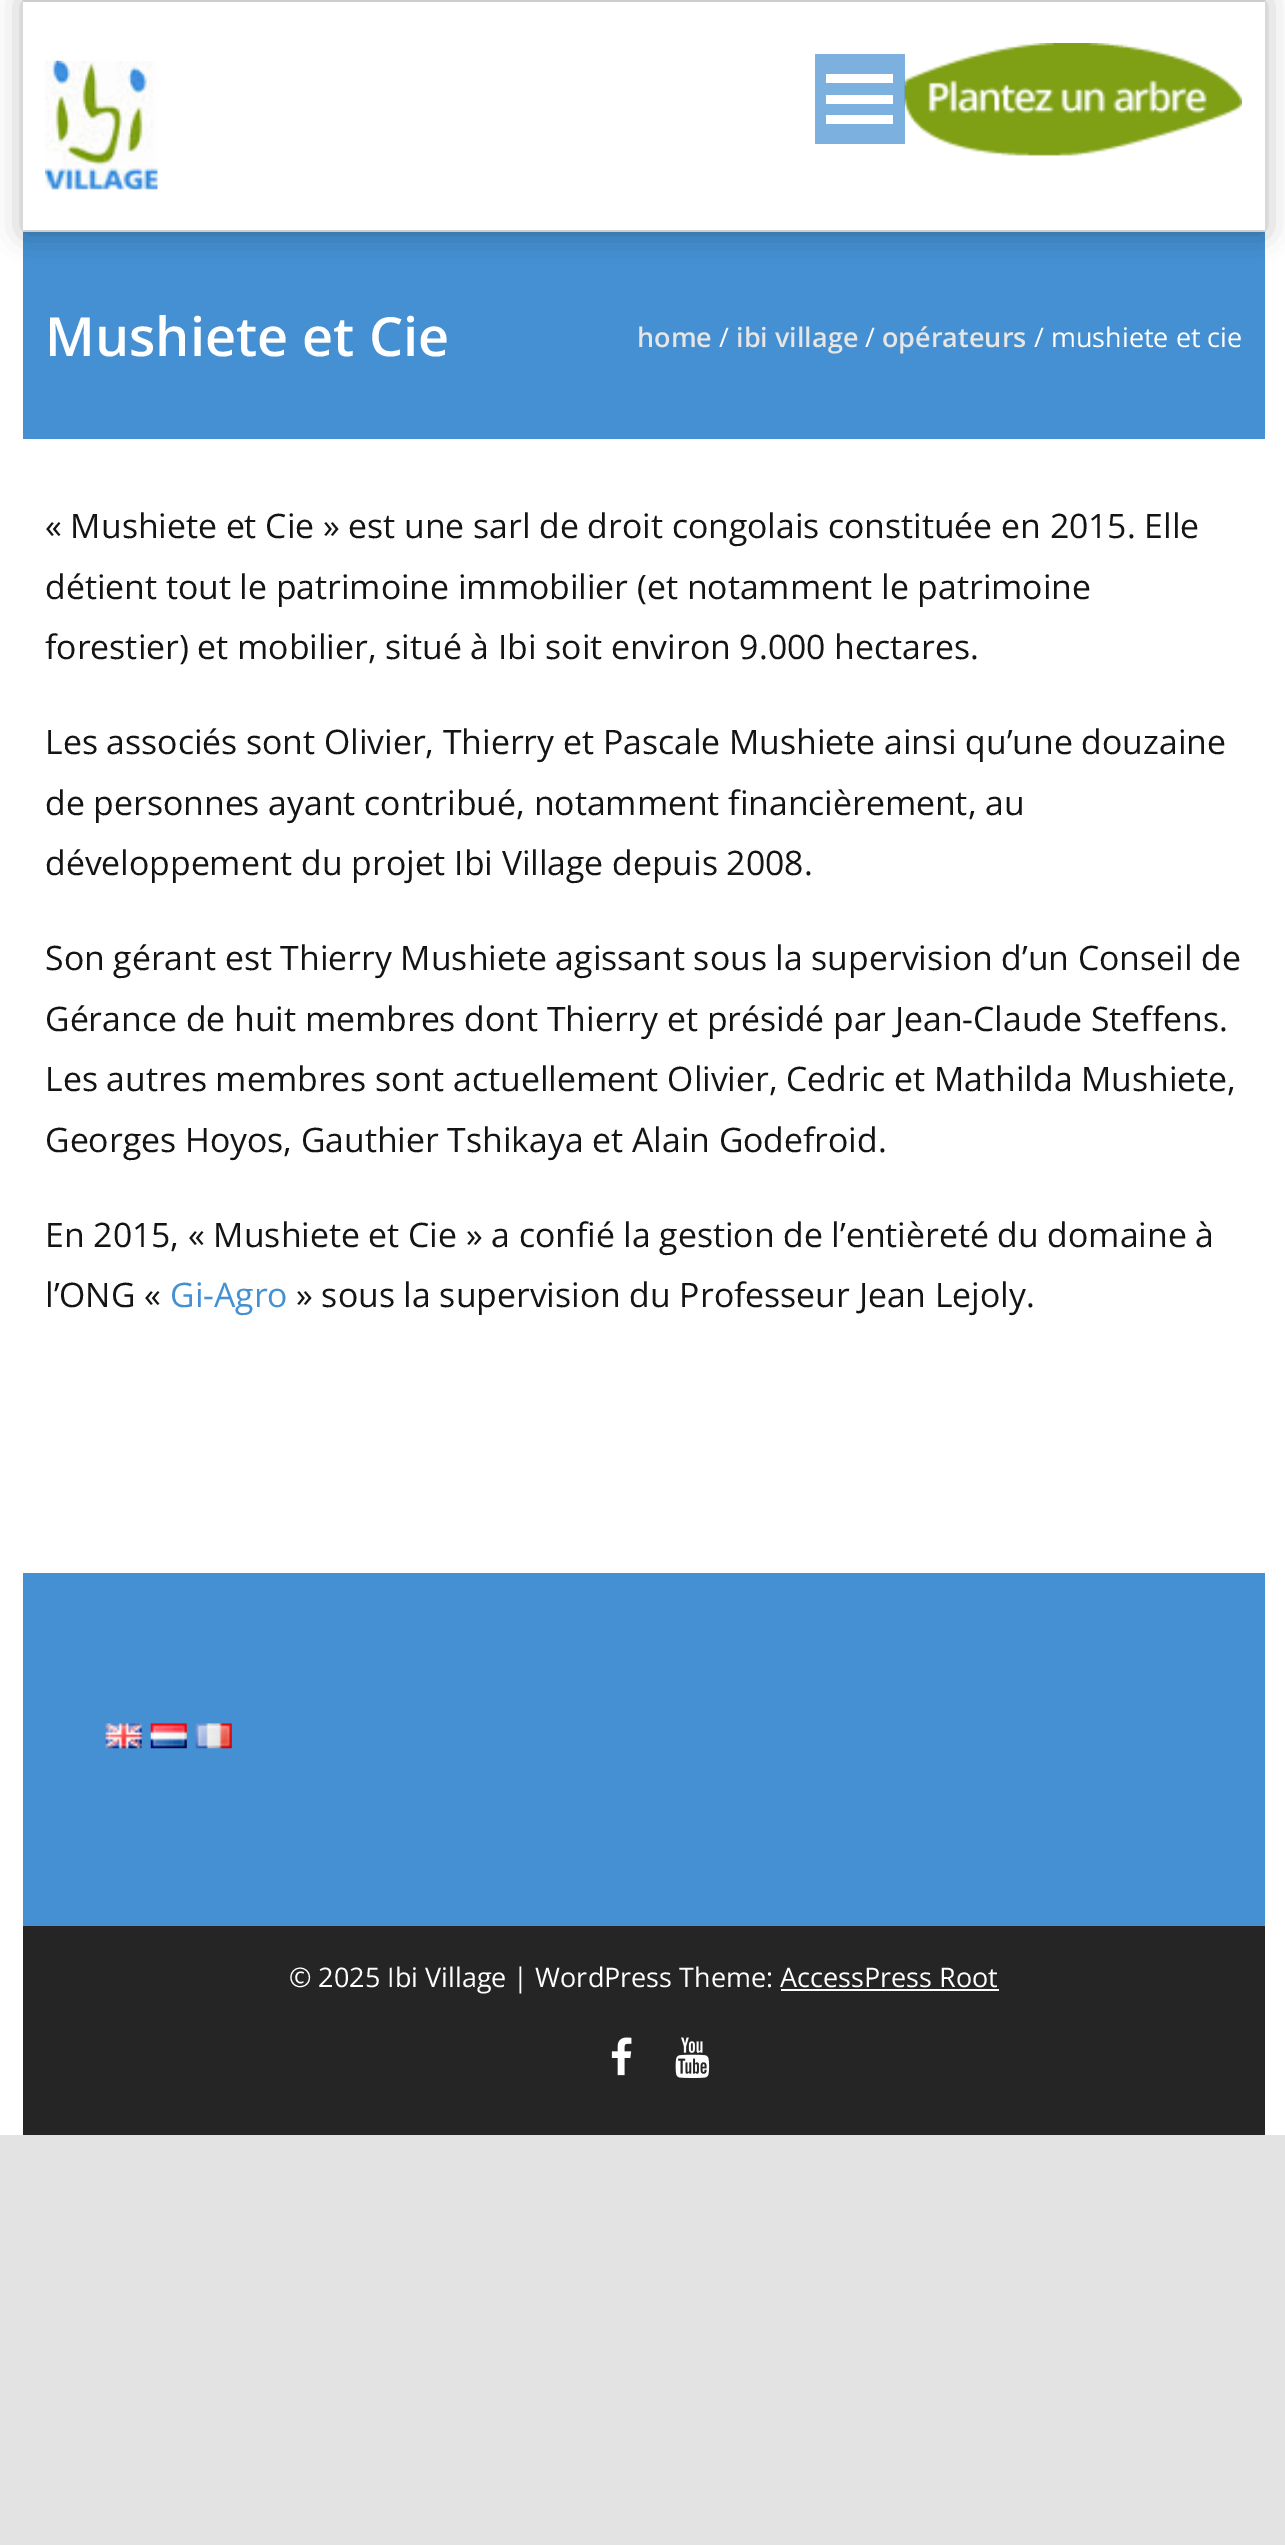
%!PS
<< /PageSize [1285 2545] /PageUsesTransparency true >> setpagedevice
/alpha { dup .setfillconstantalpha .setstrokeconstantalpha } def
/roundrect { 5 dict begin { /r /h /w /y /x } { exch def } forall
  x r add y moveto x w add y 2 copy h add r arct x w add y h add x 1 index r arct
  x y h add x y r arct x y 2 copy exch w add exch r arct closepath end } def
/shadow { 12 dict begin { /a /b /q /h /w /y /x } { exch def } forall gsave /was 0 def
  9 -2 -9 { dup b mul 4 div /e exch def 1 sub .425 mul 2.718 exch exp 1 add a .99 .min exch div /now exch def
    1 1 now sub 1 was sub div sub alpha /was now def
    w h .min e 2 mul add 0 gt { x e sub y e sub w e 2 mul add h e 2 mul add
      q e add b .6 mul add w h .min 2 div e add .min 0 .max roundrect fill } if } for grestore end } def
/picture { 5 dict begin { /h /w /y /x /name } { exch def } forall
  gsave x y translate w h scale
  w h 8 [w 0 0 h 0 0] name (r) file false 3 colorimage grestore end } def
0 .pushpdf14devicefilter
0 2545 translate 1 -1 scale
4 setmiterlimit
0.894 0.89 0.89 setrgbcolor
0 0 1285 2545 rectfill
1 setgray
0 0 1285 2135 rectfill
0.271 0.565 0.824 setrgbcolor
23 232 1242 207 rectfill
gsave
newpath 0 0 moveto 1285 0 lineto 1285 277 lineto 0 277 lineto closepath 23 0 moveto 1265 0 lineto 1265 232 lineto 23 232 lineto closepath eoclip newpath
0 setgray
23 0 1242 232 0 14.5 0.3 shadow
grestore
0.804 setgray
23 0 1242 2 rectfill
23 230 1242 2 rectfill
(img1.rgb) 45 60 113 130 picture
(img2.rgb) 904 43 338 113 picture
0.7 alpha
0.271 0.565 0.824 setrgbcolor
815 54 90 90 rectfill
1 alpha
1 setgray
826 74 67 9 rectfill
826 95 67 9 rectfill
826 115 67 9 rectfill
/OpenSans-SemiBold [54 0 0 -54 0 0] selectfont
45 356 moveto (Mushiete et Cie) show
/OpenSans-SemiBold [27 0 0 -27 0 0] selectfont
0.902 setgray
637 347 moveto (home) show
/OpenSans-Regular [27 0 0 -27 0 0] selectfont
1 setgray
719 347 moveto (/) show
/OpenSans-SemiBold [27 0 0 -27 0 0] selectfont
0.902 setgray
736 347 moveto (ibi village) show
/OpenSans-Regular [27 0 0 -27 0 0] selectfont
1 setgray
865 347 moveto (/) show
/OpenSans-SemiBold [27 0 0 -27 0 0] selectfont
0.902 setgray
882 347 moveto (opérateurs) show
/OpenSans-Regular [27 0 0 -27 0 0] selectfont
1 setgray
1034 347 moveto (/ mushiete et cie) show
/OpenSans-Regular [33.75 0 0 -33.75 0 0] selectfont
0.078 setgray
45 538 moveto (« Mushiete et Cie » est une sarl de droit congolais constituée en 2015. Elle) show
45 599 moveto (détient tout le patrimoine immobilier \(et notamment le patrimoine) show
45 659 moveto (forestier\) et mobilier, situé à Ibi soit environ 9.000 hectares.) show
45 754 moveto (Les associés sont Olivier, Thierry et Pascale Mushiete ainsi qu’une douzaine) show
45 815 moveto (de personnes ayant contribué, notamment financièrement, au) show
45 875 moveto (développement du projet Ibi Village depuis 2008.) show
45 970 moveto (Son gérant est Thierry Mushiete agissant sous la supervision d’un Conseil de) show
45 1031 moveto (Gérance de huit membres dont Thierry et présidé par Jean-Claude Steffens.) show
45 1091 moveto (Les autres membres sont actuellement Olivier, Cedric et Mathilda Mushiete,) show
45 1152 moveto (Georges Hoyos, Gauthier Tshikaya et Alain Godefroid.) show
45 1247 moveto (En 2015, « Mushiete et Cie » a confié la gestion de l’entièreté du domaine à) show
45 1307 moveto (l’ONG «) show
0.271 0.565 0.824 setrgbcolor
170 1307 moveto (Gi-Agro) show
0.078 setgray
296 1307 moveto (» sous la supervision du Professeur Jean Lejoly.) show
0.271 0.565 0.824 setrgbcolor
23 1573 1242 353 rectfill
(img3.rgb) 105 1723 37 26 picture
(img4.rgb) 150 1723 37 26 picture
(img5.rgb) 195 1723 37 26 picture
0.145 setgray
23 1926 1242 209 rectfill
/OpenSans-Regular [27 0 0 -27 0 0] selectfont
1 setgray
289 1987 moveto (© 2025 Ibi Village | WordPress Theme: AccessPress Root) show
781 1989 218 2 rectfill
(img6.rgb) 611 2037 21 39 picture
(img7.rgb) 675 2037 35 41 picture
.poppdf14devicefilter showpage
